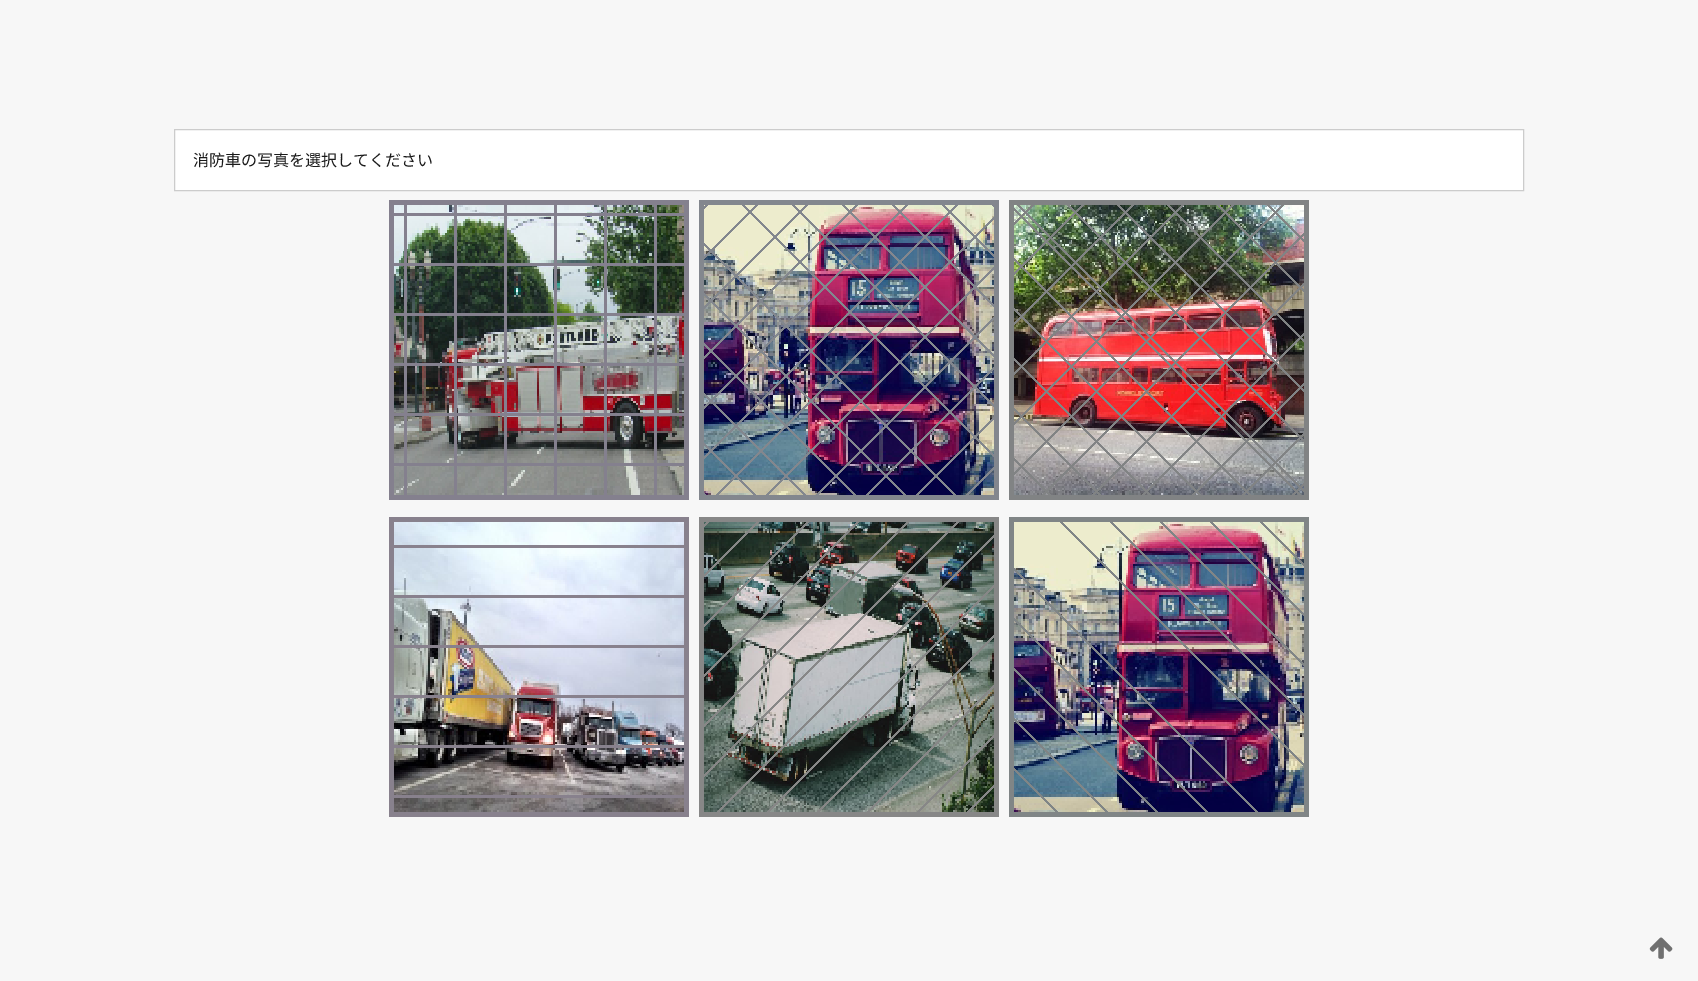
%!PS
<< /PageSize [1698 981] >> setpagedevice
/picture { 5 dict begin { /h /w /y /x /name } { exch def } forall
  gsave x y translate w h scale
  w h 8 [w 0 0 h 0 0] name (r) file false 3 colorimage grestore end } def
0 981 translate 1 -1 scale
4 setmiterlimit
0.969 setgray
0 0 1698 981 rectfill
1 setgray
newpath 174.5 129.5 moveto 1523.5 129.5 lineto 1523.5 190.5 lineto 174.5 190.5 lineto closepath gsave fill grestore
0.8 setgray
stroke
/NotoSansSC-Thin [16 0 0 -16 0 0] selectfont
0.102 setgray
193 166 moveto (消防車の写真を選択してください) show
(img1.rgb) 389 200 300 300 picture
(img2.rgb) 699 200 300 300 picture
(img3.rgb) 1009 200 300 300 picture
(img4.rgb) 389 517 300 300 picture
(img5.rgb) 699 517 300 300 picture
(img6.rgb) 1009 517 300 300 picture
(img7.rgb) 1649 937 24 22 picture
showpage
